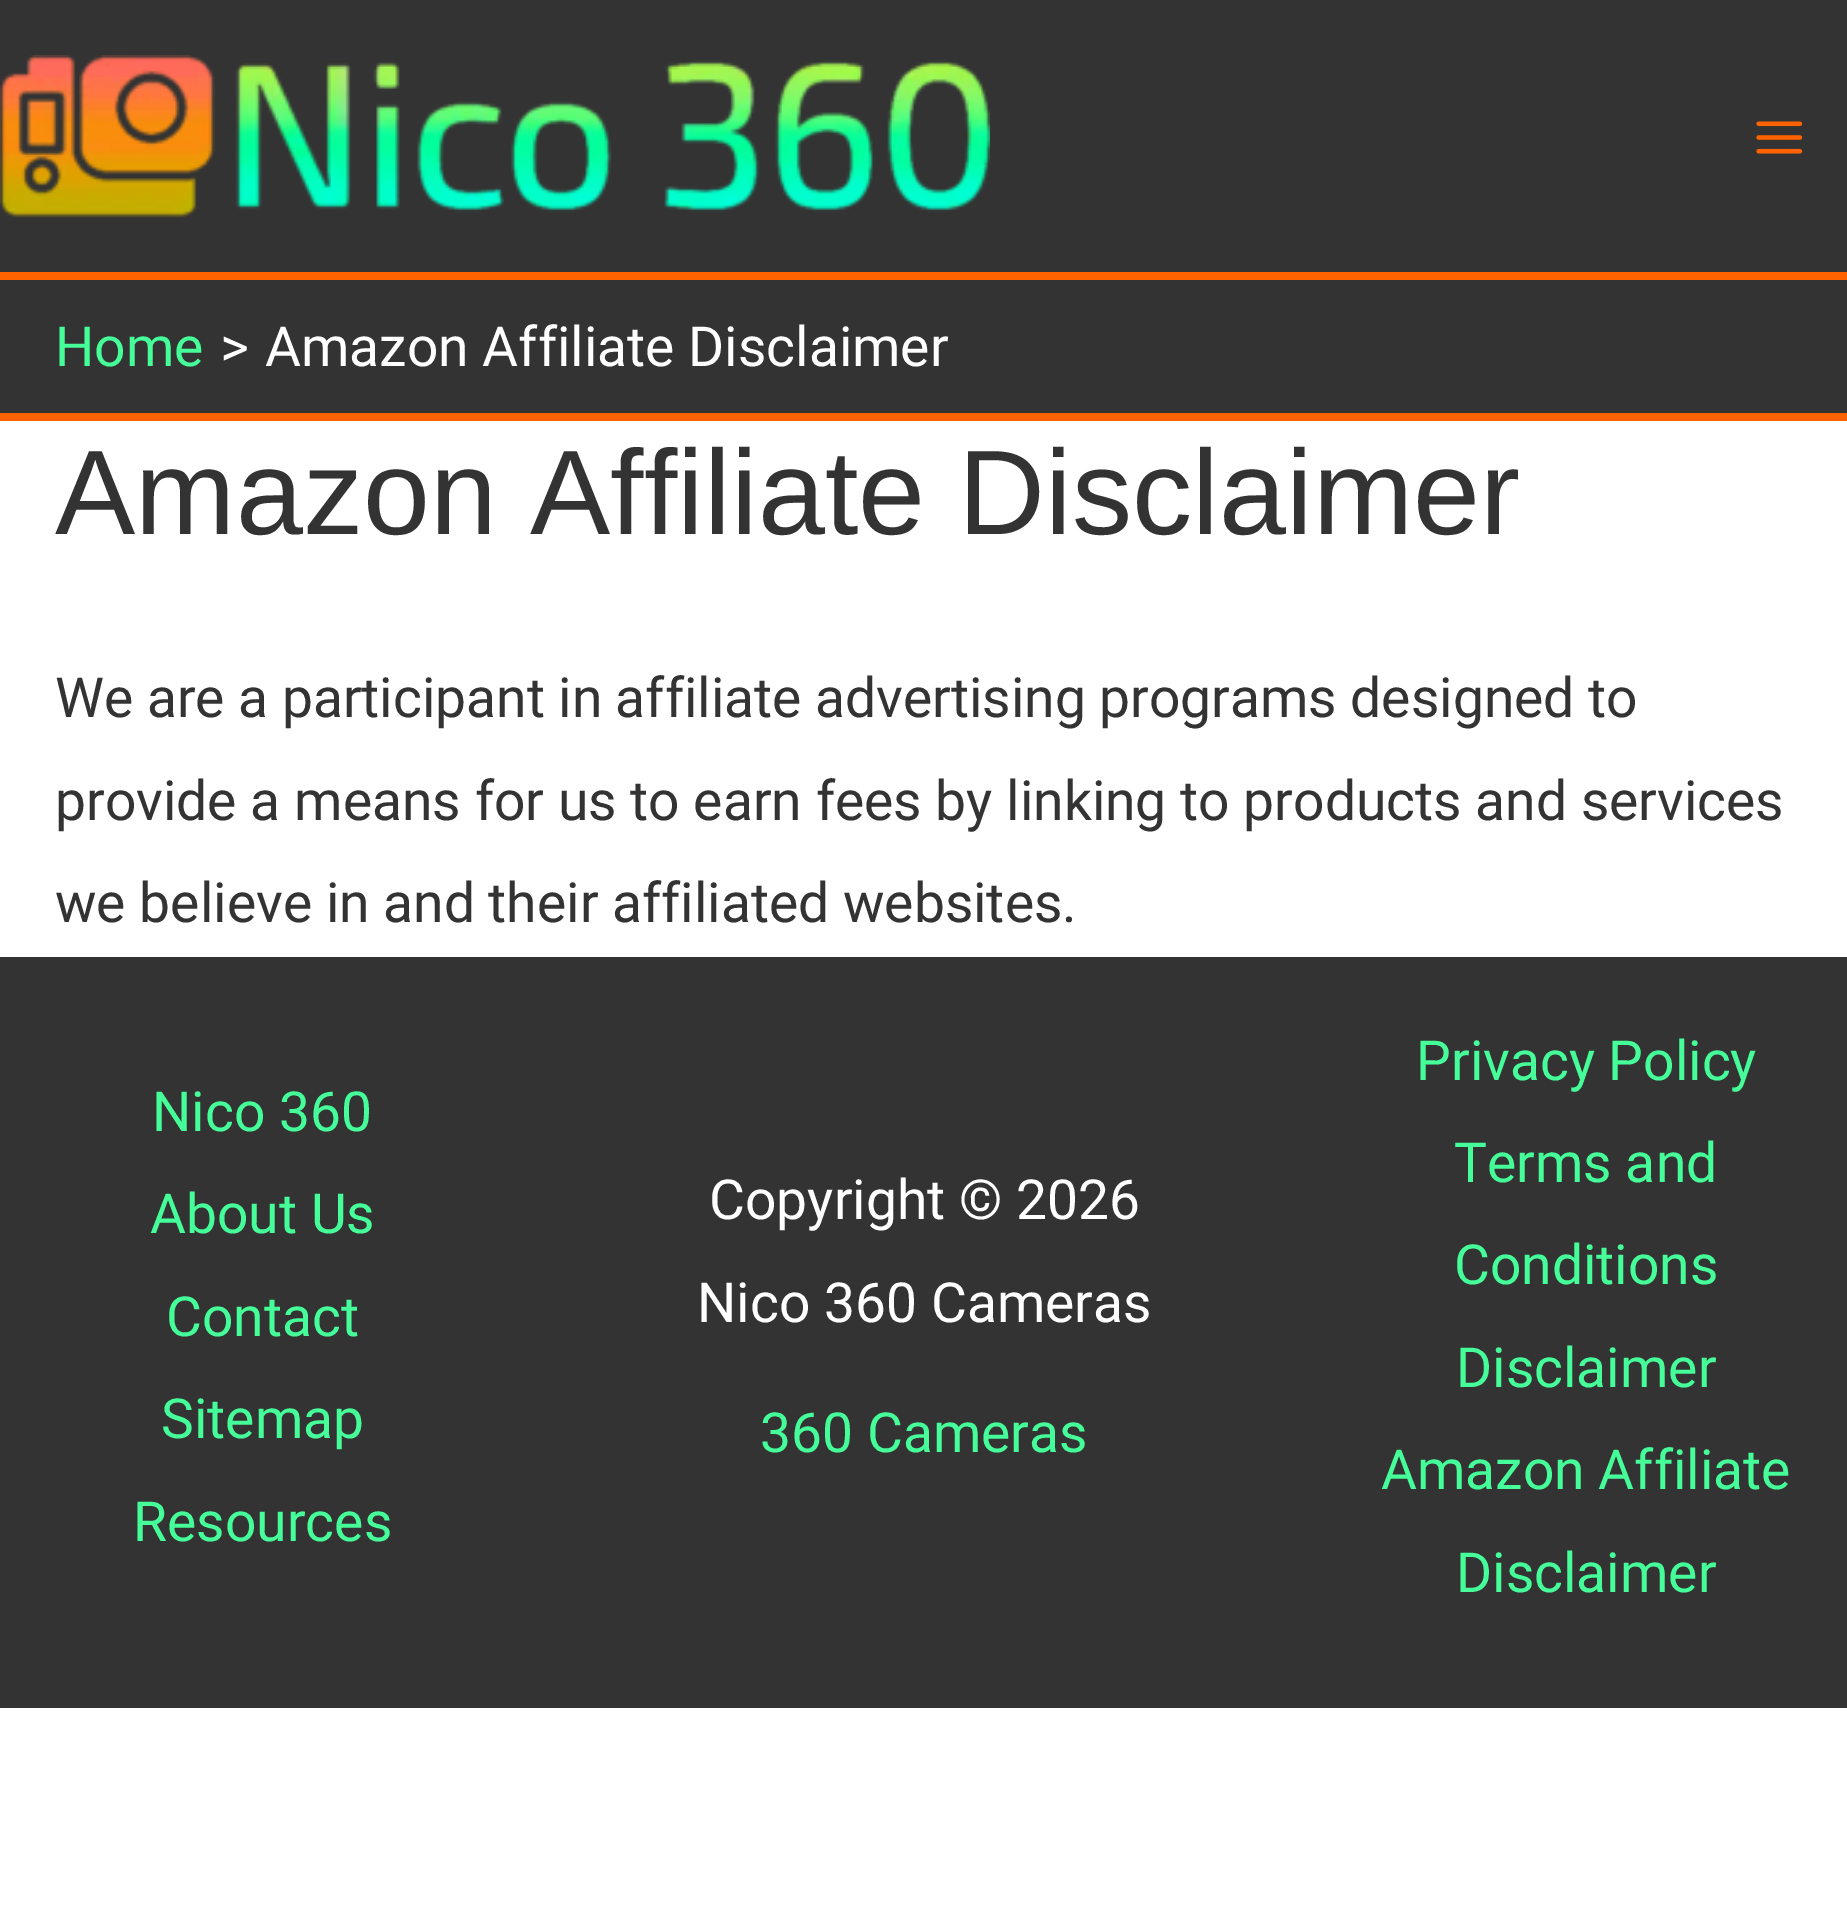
%!PS
<< /PageSize [1847 1907] >> setpagedevice
/picture { 5 dict begin { /h /w /y /x /name } { exch def } forall
  gsave x y translate w h scale
  w h 8 [w 0 0 h 0 0] name (r) file false 3 colorimage grestore end } def
0 1907 translate 1 -1 scale
4 setmiterlimit
1 setgray
0 0 1847 1907 rectfill
0.2 setgray
0 0 1847 413 rectfill
1 0.388 0 setrgbcolor
0 272 1847 8 rectfill
(img1.rgb) 0 55 990 163 picture
(img2.rgb) 1756 121 47 33 picture
0 413 1847 8 rectfill
/Roboto-Regular [55.2 0 0 -55.2 0 0] selectfont
0.271 0.996 0.6 setrgbcolor
55 366 moveto (Home) show
1 setgray
220 366 moveto (>) show
265 366 moveto (Amazon Affiliate Disclaimer) show
/LiberationSans-Regular [120.4 0 0 -120.4 0 0] selectfont
0.2 setgray
55 534 moveto (Amazon Affiliate Disclaimer) show
/Roboto-Regular [55.2 0 0 -55.2 0 0] selectfont
55 717 moveto -0.25 0 32 (We are a participant in affiliate advertising programs designed to) widthshow
55 820 moveto (provide a means for us to earn fees by linking to products and services) show
55 922 moveto (we believe in and their affiliated websites.) show
0 957 1847 751 rectfill
0.271 0.996 0.6 setrgbcolor
152 1131 moveto (Nico 360) show
150 1233 moveto (About Us) show
166 1336 moveto (Contact) show
161 1438 moveto (Sitemap) show
133 1541 moveto (Resources) show
1 setgray
709 1219 moveto (Copyright © 2026) show
697 1322 moveto (Nico 360 Cameras) show
0.271 0.996 0.6 setrgbcolor
760 1452 moveto (360 Cameras) show
1416 1080 moveto (Privacy Policy) show
1454 1182 moveto (Terms and) show
1454 1284 moveto (Conditions) show
1456 1387 moveto (Disclaimer) show
1381 1489 moveto (Amazon Affiliate) show
1456 1592 moveto (Disclaimer) show
showpage
